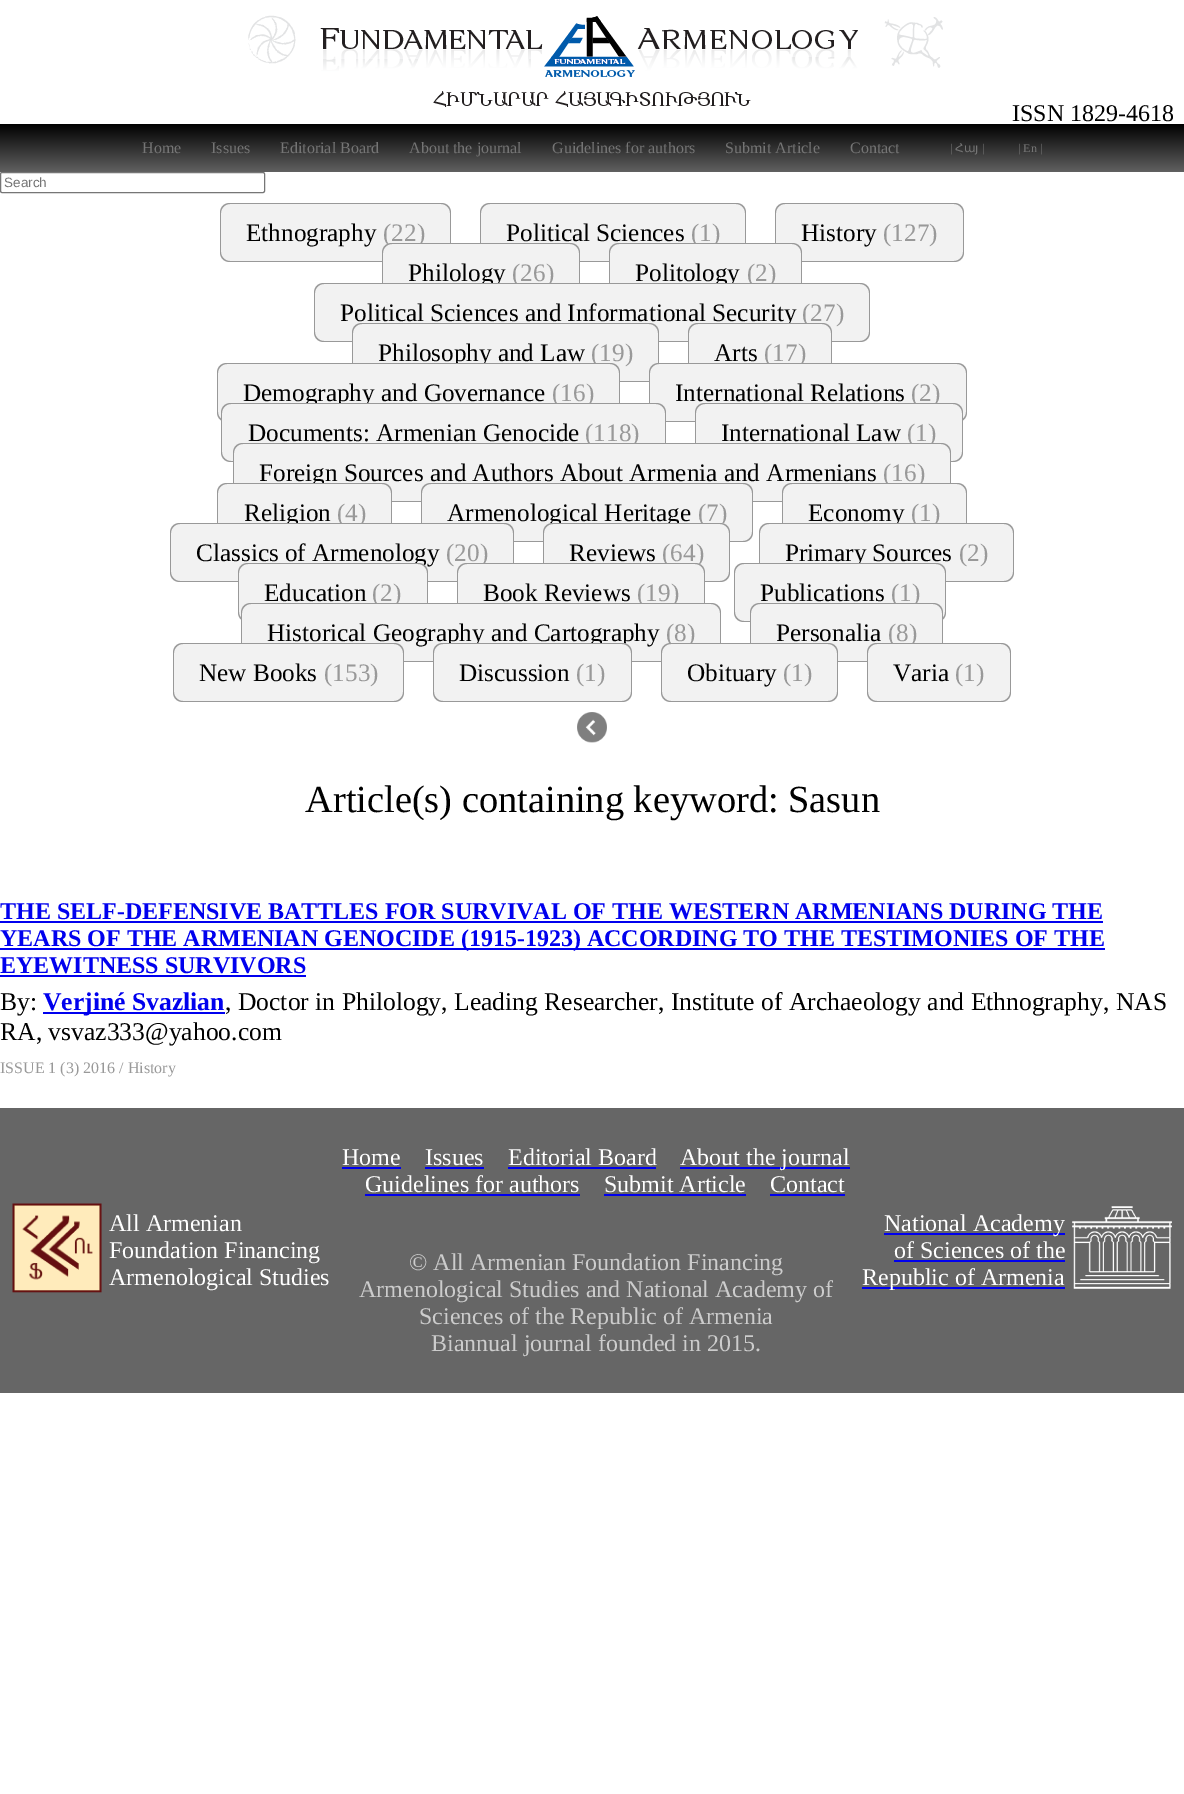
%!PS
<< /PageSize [1184 1794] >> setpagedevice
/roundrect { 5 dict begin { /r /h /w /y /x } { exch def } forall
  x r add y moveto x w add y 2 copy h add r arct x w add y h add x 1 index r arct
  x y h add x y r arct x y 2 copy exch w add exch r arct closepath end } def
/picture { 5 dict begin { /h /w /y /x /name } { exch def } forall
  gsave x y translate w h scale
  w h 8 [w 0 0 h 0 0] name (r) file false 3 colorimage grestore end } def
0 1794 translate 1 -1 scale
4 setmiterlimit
1 setgray
0 0 1184 1794 rectfill
/LiberationSerif-Regular [24 0 0 -24 0 0] selectfont
0 setgray
1012 121 moveto (ISSN 1829-4618) show
(img1.rgb) 248 15 695 92 picture
gsave newpath 0 124 moveto 1184 124 lineto 1184 172 lineto 0 172 lineto closepath clip newpath
<< /ShadingType 2 /ColorSpace /DeviceRGB /Coords [592 124 592 172] /Extend [true true] /Function << /FunctionType 2 /Domain [0 1] /C0 [0 0 0] /C1 [0.376 0.376 0.376] /N 1 >> >> shfill grestore
/LiberationSerif-Regular [16 0 0 -16 0 0] selectfont
0.459 setgray
142 153 moveto (Home) show
211 153 moveto (Issues) show
280 153 moveto (Editorial Board) show
409 153 moveto (About the journal) show
552 153 moveto (Guidelines for authors) show
725 153 moveto (Submit Article) show
850 153 moveto (Contact) show
/LiberationSerif-Regular [12 0 0 -12 0 0] selectfont
950 152 moveto (|) show
/DejaVuSans-Regular [12 0 0 -12 0 0] selectfont
955 152 moveto (Հայ) show
/LiberationSerif-Regular [12 0 0 -12 0 0] selectfont
982 152 moveto (|) show
1018 152 moveto (| En |) show
0.463 setgray
0.5 172.5 264 20 1.5 roundrect stroke
/LiberationSans-Regular [13.5 0 0 -13.5 0 0] selectfont
0.459 setgray
4 187 moveto (Search) show
0.949 setgray
newpath 230 203 moveto 383 203 lineto 383 262 lineto 230 262 lineto 224.5 262 220 257.5 220 252 curveto 220 213 lineto 220 207.5 224.5 203 230 203 curveto closepath fill
0.6 setgray
newpath 230 203 moveto 383 203 lineto 383 262 lineto 230 262 lineto 224 262 220 258 220 252 curveto 220 213 lineto 220 207 224 203 230 203 curveto closepath 230 204 moveto 383 204 lineto 383 261 lineto 230 261 lineto 225 261 221 257 221 252 curveto 221 213 lineto 221 208 225 204 230 204 curveto closepath eofill
/LiberationSerif-Regular [25.2 0 0 -25.2 0 0] selectfont
0 setgray
246 241 moveto (Ethnography) show
0.949 setgray
newpath 383 203 moveto 441 203 lineto 446.5 203 451 207.5 451 213 curveto 451 252 lineto 451 257.5 446.5 262 441 262 curveto 383 262 lineto closepath fill
0.6 setgray
newpath 383 203 moveto 441 203 lineto 447 203 451 207 451 213 curveto 451 252 lineto 451 258 447 262 441 262 curveto 383 262 lineto closepath 383 204 moveto 441 204 lineto 446 204 450 208 450 213 curveto 450 252 lineto 450 257 446 261 441 261 curveto 383 261 lineto closepath eofill
383 241 moveto (\(22\)) show
0.949 setgray
newpath 490 203 moveto 691 203 lineto 691 262 lineto 490 262 lineto 484.5 262 480 257.5 480 252 curveto 480 213 lineto 480 207.5 484.5 203 490 203 curveto closepath fill
0.6 setgray
newpath 490 203 moveto 691 203 lineto 691 262 lineto 490 262 lineto 484 262 480 258 480 252 curveto 480 213 lineto 480 207 484 203 490 203 curveto closepath 490 204 moveto 691 204 lineto 691 261 lineto 490 261 lineto 485 261 481 257 481 252 curveto 481 213 lineto 481 208 485 204 490 204 curveto closepath eofill
0 setgray
506 241 moveto (Political Sciences) show
0.949 setgray
newpath 691 203 moveto 736 203 lineto 741.5 203 746 207.5 746 213 curveto 746 252 lineto 746 257.5 741.5 262 736 262 curveto 691 262 lineto closepath fill
0.6 setgray
newpath 691 203 moveto 736 203 lineto 742 203 746 207 746 213 curveto 746 252 lineto 746 258 742 262 736 262 curveto 691 262 lineto closepath 691 204 moveto 736 204 lineto 741 204 745 208 745 213 curveto 745 252 lineto 745 257 741 261 736 261 curveto 691 261 lineto closepath eofill
691 241 moveto (\(1\)) show
0.949 setgray
newpath 785 203 moveto 883 203 lineto 883 262 lineto 785 262 lineto 779.5 262 775 257.5 775 252 curveto 775 213 lineto 775 207.5 779.5 203 785 203 curveto closepath fill
0.6 setgray
newpath 785 203 moveto 883 203 lineto 883 262 lineto 785 262 lineto 779 262 775 258 775 252 curveto 775 213 lineto 775 207 779 203 785 203 curveto closepath 785 204 moveto 883 204 lineto 883 261 lineto 785 261 lineto 780 261 776 257 776 252 curveto 776 213 lineto 776 208 780 204 785 204 curveto closepath eofill
0 setgray
801 241 moveto (History) show
0.949 setgray
newpath 883 203 moveto 954 203 lineto 959.5 203 964 207.5 964 213 curveto 964 252 lineto 964 257.5 959.5 262 954 262 curveto 883 262 lineto closepath fill
0.6 setgray
newpath 883 203 moveto 954 203 lineto 960 203 964 207 964 213 curveto 964 252 lineto 964 258 960 262 954 262 curveto 883 262 lineto closepath 883 204 moveto 954 204 lineto 959 204 963 208 963 213 curveto 963 252 lineto 963 257 959 261 954 261 curveto 883 261 lineto closepath eofill
883 241 moveto (\(127\)) show
0.949 setgray
newpath 392 243 moveto 512 243 lineto 512 302 lineto 392 302 lineto 386.5 302 382 297.5 382 292 curveto 382 253 lineto 382 247.5 386.5 243 392 243 curveto closepath fill
0.6 setgray
newpath 392 243 moveto 512 243 lineto 512 302 lineto 392 302 lineto 386 302 382 298 382 292 curveto 382 253 lineto 382 247 386 243 392 243 curveto closepath 392 244 moveto 512 244 lineto 512 301 lineto 392 301 lineto 387 301 383 297 383 292 curveto 383 253 lineto 383 248 387 244 392 244 curveto closepath eofill
0 setgray
408 281 moveto (Philology) show
0.949 setgray
newpath 512 243 moveto 570 243 lineto 575.5 243 580 247.5 580 253 curveto 580 292 lineto 580 297.5 575.5 302 570 302 curveto 512 302 lineto closepath fill
0.6 setgray
newpath 512 243 moveto 570 243 lineto 576 243 580 247 580 253 curveto 580 292 lineto 580 298 576 302 570 302 curveto 512 302 lineto closepath 512 244 moveto 570 244 lineto 575 244 579 248 579 253 curveto 579 292 lineto 579 297 575 301 570 301 curveto 512 301 lineto closepath eofill
512 281 moveto (\(26\)) show
0.949 setgray
newpath 619 243 moveto 747 243 lineto 747 302 lineto 619 302 lineto 613.5 302 609 297.5 609 292 curveto 609 253 lineto 609 247.5 613.5 243 619 243 curveto closepath fill
0.6 setgray
newpath 619 243 moveto 747 243 lineto 747 302 lineto 619 302 lineto 613 302 609 298 609 292 curveto 609 253 lineto 609 247 613 243 619 243 curveto closepath 619 244 moveto 747 244 lineto 747 301 lineto 619 301 lineto 614 301 610 297 610 292 curveto 610 253 lineto 610 248 614 244 619 244 curveto closepath eofill
0 setgray
635 281 moveto (Politology) show
0.949 setgray
newpath 747 243 moveto 792 243 lineto 797.5 243 802 247.5 802 253 curveto 802 292 lineto 802 297.5 797.5 302 792 302 curveto 747 302 lineto closepath fill
0.6 setgray
newpath 747 243 moveto 792 243 lineto 798 243 802 247 802 253 curveto 802 292 lineto 802 298 798 302 792 302 curveto 747 302 lineto closepath 747 244 moveto 792 244 lineto 797 244 801 248 801 253 curveto 801 292 lineto 801 297 797 301 792 301 curveto 747 301 lineto closepath eofill
747 281 moveto (\(2\)) show
0.949 setgray
newpath 324 283 moveto 802 283 lineto 802 342 lineto 324 342 lineto 318.5 342 314 337.5 314 332 curveto 314 293 lineto 314 287.5 318.5 283 324 283 curveto closepath fill
0.6 setgray
newpath 324 283 moveto 802 283 lineto 802 342 lineto 324 342 lineto 318 342 314 338 314 332 curveto 314 293 lineto 314 287 318 283 324 283 curveto closepath 324 284 moveto 802 284 lineto 802 341 lineto 324 341 lineto 319 341 315 337 315 332 curveto 315 293 lineto 315 288 319 284 324 284 curveto closepath eofill
0 setgray
340 321 moveto (Political Sciences and Informational Security) show
0.949 setgray
newpath 802 283 moveto 860 283 lineto 865.5 283 870 287.5 870 293 curveto 870 332 lineto 870 337.5 865.5 342 860 342 curveto 802 342 lineto closepath fill
0.6 setgray
newpath 802 283 moveto 860 283 lineto 866 283 870 287 870 293 curveto 870 332 lineto 870 338 866 342 860 342 curveto 802 342 lineto closepath 802 284 moveto 860 284 lineto 865 284 869 288 869 293 curveto 869 332 lineto 869 337 865 341 860 341 curveto 802 341 lineto closepath eofill
802 321 moveto (\(27\)) show
0.949 setgray
newpath 362 323 moveto 591 323 lineto 591 382 lineto 362 382 lineto 356.5 382 352 377.5 352 372 curveto 352 333 lineto 352 327.5 356.5 323 362 323 curveto closepath fill
0.6 setgray
newpath 362 323 moveto 591 323 lineto 591 382 lineto 362 382 lineto 356 382 352 378 352 372 curveto 352 333 lineto 352 327 356 323 362 323 curveto closepath 362 324 moveto 591 324 lineto 591 381 lineto 362 381 lineto 357 381 353 377 353 372 curveto 353 333 lineto 353 328 357 324 362 324 curveto closepath eofill
0 setgray
378 361 moveto (Philosophy and Law) show
0.949 setgray
newpath 591 323 moveto 649 323 lineto 654.5 323 659 327.5 659 333 curveto 659 372 lineto 659 377.5 654.5 382 649 382 curveto 591 382 lineto closepath fill
0.6 setgray
newpath 591 323 moveto 649 323 lineto 655 323 659 327 659 333 curveto 659 372 lineto 659 378 655 382 649 382 curveto 591 382 lineto closepath 591 324 moveto 649 324 lineto 654 324 658 328 658 333 curveto 658 372 lineto 658 377 654 381 649 381 curveto 591 381 lineto closepath eofill
591 361 moveto (\(19\)) show
0.949 setgray
newpath 698 323 moveto 764 323 lineto 764 382 lineto 698 382 lineto 692.5 382 688 377.5 688 372 curveto 688 333 lineto 688 327.5 692.5 323 698 323 curveto closepath fill
0.6 setgray
newpath 698 323 moveto 764 323 lineto 764 382 lineto 698 382 lineto 692 382 688 378 688 372 curveto 688 333 lineto 688 327 692 323 698 323 curveto closepath 698 324 moveto 764 324 lineto 764 381 lineto 698 381 lineto 693 381 689 377 689 372 curveto 689 333 lineto 689 328 693 324 698 324 curveto closepath eofill
0 setgray
714 361 moveto (Arts) show
0.949 setgray
newpath 764 323 moveto 822 323 lineto 827.5 323 832 327.5 832 333 curveto 832 372 lineto 832 377.5 827.5 382 822 382 curveto 764 382 lineto closepath fill
0.6 setgray
newpath 764 323 moveto 822 323 lineto 828 323 832 327 832 333 curveto 832 372 lineto 832 378 828 382 822 382 curveto 764 382 lineto closepath 764 324 moveto 822 324 lineto 827 324 831 328 831 333 curveto 831 372 lineto 831 377 827 381 822 381 curveto 764 381 lineto closepath eofill
764 361 moveto (\(17\)) show
0.949 setgray
newpath 227 363 moveto 552 363 lineto 552 422 lineto 227 422 lineto 221.5 422 217 417.5 217 412 curveto 217 373 lineto 217 367.5 221.5 363 227 363 curveto closepath fill
0.6 setgray
newpath 227 363 moveto 552 363 lineto 552 422 lineto 227 422 lineto 221 422 217 418 217 412 curveto 217 373 lineto 217 367 221 363 227 363 curveto closepath 227 364 moveto 552 364 lineto 552 421 lineto 227 421 lineto 222 421 218 417 218 412 curveto 218 373 lineto 218 368 222 364 227 364 curveto closepath eofill
0 setgray
243 401 moveto (Demography and Governance) show
0.949 setgray
newpath 552 363 moveto 610 363 lineto 615.5 363 620 367.5 620 373 curveto 620 412 lineto 620 417.5 615.5 422 610 422 curveto 552 422 lineto closepath fill
0.6 setgray
newpath 552 363 moveto 610 363 lineto 616 363 620 367 620 373 curveto 620 412 lineto 620 418 616 422 610 422 curveto 552 422 lineto closepath 552 364 moveto 610 364 lineto 615 364 619 368 619 373 curveto 619 412 lineto 619 417 615 421 610 421 curveto 552 421 lineto closepath eofill
552 401 moveto (\(16\)) show
0.949 setgray
newpath 659 363 moveto 911 363 lineto 911 422 lineto 659 422 lineto 653.5 422 649 417.5 649 412 curveto 649 373 lineto 649 367.5 653.5 363 659 363 curveto closepath fill
0.6 setgray
newpath 659 363 moveto 911 363 lineto 911 422 lineto 659 422 lineto 653 422 649 418 649 412 curveto 649 373 lineto 649 367 653 363 659 363 curveto closepath 659 364 moveto 911 364 lineto 911 421 lineto 659 421 lineto 654 421 650 417 650 412 curveto 650 373 lineto 650 368 654 364 659 364 curveto closepath eofill
0 setgray
675 401 moveto (International Relations) show
0.949 setgray
newpath 911 363 moveto 957 363 lineto 962.5 363 967 367.5 967 373 curveto 967 412 lineto 967 417.5 962.5 422 957 422 curveto 911 422 lineto closepath fill
0.6 setgray
newpath 911 363 moveto 957 363 lineto 963 363 967 367 967 373 curveto 967 412 lineto 967 418 963 422 957 422 curveto 911 422 lineto closepath 911 364 moveto 957 364 lineto 962 364 966 368 966 373 curveto 966 412 lineto 966 417 962 421 957 421 curveto 911 421 lineto closepath eofill
911 401 moveto (\(2\)) show
0.949 setgray
newpath 231 403 moveto 585 403 lineto 585 462 lineto 231 462 lineto 225.5 462 221 457.5 221 452 curveto 221 413 lineto 221 407.5 225.5 403 231 403 curveto closepath fill
0.6 setgray
newpath 231 403 moveto 585 403 lineto 585 462 lineto 231 462 lineto 225 462 221 458 221 452 curveto 221 413 lineto 221 407 225 403 231 403 curveto closepath 231 404 moveto 585 404 lineto 585 461 lineto 231 461 lineto 226 461 222 457 222 452 curveto 222 413 lineto 222 408 226 404 231 404 curveto closepath eofill
0 setgray
248 441 moveto (Documents: Armenian Genocide) show
0.949 setgray
newpath 585 403 moveto 656 403 lineto 661.5 403 666 407.5 666 413 curveto 666 452 lineto 666 457.5 661.5 462 656 462 curveto 585 462 lineto closepath fill
0.6 setgray
newpath 585 403 moveto 656 403 lineto 662 403 666 407 666 413 curveto 666 452 lineto 666 458 662 462 656 462 curveto 585 462 lineto closepath 585 404 moveto 656 404 lineto 661 404 665 408 665 413 curveto 665 452 lineto 665 457 661 461 656 461 curveto 585 461 lineto closepath eofill
585 441 moveto (\(118\)) show
0.949 setgray
newpath 705 403 moveto 907 403 lineto 907 462 lineto 705 462 lineto 699.5 462 695 457.5 695 452 curveto 695 413 lineto 695 407.5 699.5 403 705 403 curveto closepath fill
0.6 setgray
newpath 705 403 moveto 907 403 lineto 907 462 lineto 705 462 lineto 699 462 695 458 695 452 curveto 695 413 lineto 695 407 699 403 705 403 curveto closepath 705 404 moveto 907 404 lineto 907 461 lineto 705 461 lineto 700 461 696 457 696 452 curveto 696 413 lineto 696 408 700 404 705 404 curveto closepath eofill
0 setgray
721 441 moveto (International Law) show
0.949 setgray
newpath 907 403 moveto 953 403 lineto 958.5 403 963 407.5 963 413 curveto 963 452 lineto 963 457.5 958.5 462 953 462 curveto 907 462 lineto closepath fill
0.6 setgray
newpath 907 403 moveto 953 403 lineto 959 403 963 407 963 413 curveto 963 452 lineto 963 458 959 462 953 462 curveto 907 462 lineto closepath 907 404 moveto 953 404 lineto 958 404 962 408 962 413 curveto 962 452 lineto 962 457 958 461 953 461 curveto 907 461 lineto closepath eofill
907 441 moveto (\(1\)) show
0.949 setgray
newpath 243 443 moveto 883 443 lineto 883 502 lineto 243 502 lineto 237.5 502 233 497.5 233 492 curveto 233 453 lineto 233 447.5 237.5 443 243 443 curveto closepath fill
0.6 setgray
newpath 243 443 moveto 883 443 lineto 883 502 lineto 243 502 lineto 237 502 233 498 233 492 curveto 233 453 lineto 233 447 237 443 243 443 curveto closepath 243 444 moveto 883 444 lineto 883 501 lineto 243 501 lineto 238 501 234 497 234 492 curveto 234 453 lineto 234 448 238 444 243 444 curveto closepath eofill
0 setgray
259 481 moveto (Foreign Sources and Authors About Armenia and Armenians) show
0.949 setgray
newpath 883 443 moveto 941 443 lineto 946.5 443 951 447.5 951 453 curveto 951 492 lineto 951 497.5 946.5 502 941 502 curveto 883 502 lineto closepath fill
0.6 setgray
newpath 883 443 moveto 941 443 lineto 947 443 951 447 951 453 curveto 951 492 lineto 951 498 947 502 941 502 curveto 883 502 lineto closepath 883 444 moveto 941 444 lineto 946 444 950 448 950 453 curveto 950 492 lineto 950 497 946 501 941 501 curveto 883 501 lineto closepath eofill
883 481 moveto (\(16\)) show
0.949 setgray
newpath 227 483 moveto 337 483 lineto 337 542 lineto 227 542 lineto 221.5 542 217 537.5 217 532 curveto 217 493 lineto 217 487.5 221.5 483 227 483 curveto closepath fill
0.6 setgray
newpath 227 483 moveto 337 483 lineto 337 542 lineto 227 542 lineto 221 542 217 538 217 532 curveto 217 493 lineto 217 487 221 483 227 483 curveto closepath 227 484 moveto 337 484 lineto 337 541 lineto 227 541 lineto 222 541 218 537 218 532 curveto 218 493 lineto 218 488 222 484 227 484 curveto closepath eofill
0 setgray
244 521 moveto (Religion) show
0.949 setgray
newpath 337 483 moveto 382 483 lineto 387.5 483 392 487.5 392 493 curveto 392 532 lineto 392 537.5 387.5 542 382 542 curveto 337 542 lineto closepath fill
0.6 setgray
newpath 337 483 moveto 382 483 lineto 388 483 392 487 392 493 curveto 392 532 lineto 392 538 388 542 382 542 curveto 337 542 lineto closepath 337 484 moveto 382 484 lineto 387 484 391 488 391 493 curveto 391 532 lineto 391 537 387 541 382 541 curveto 337 541 lineto closepath eofill
337 521 moveto (\(4\)) show
0.949 setgray
newpath 431 483 moveto 698 483 lineto 698 542 lineto 431 542 lineto 425.5 542 421 537.5 421 532 curveto 421 493 lineto 421 487.5 425.5 483 431 483 curveto closepath fill
0.6 setgray
newpath 431 483 moveto 698 483 lineto 698 542 lineto 431 542 lineto 425 542 421 538 421 532 curveto 421 493 lineto 421 487 425 483 431 483 curveto closepath 431 484 moveto 698 484 lineto 698 541 lineto 431 541 lineto 426 541 422 537 422 532 curveto 422 493 lineto 422 488 426 484 431 484 curveto closepath eofill
0 setgray
447 521 moveto (Armenological Heritage) show
0.949 setgray
newpath 698 483 moveto 743 483 lineto 748.5 483 753 487.5 753 493 curveto 753 532 lineto 753 537.5 748.5 542 743 542 curveto 698 542 lineto closepath fill
0.6 setgray
newpath 698 483 moveto 743 483 lineto 749 483 753 487 753 493 curveto 753 532 lineto 753 538 749 542 743 542 curveto 698 542 lineto closepath 698 484 moveto 743 484 lineto 748 484 752 488 752 493 curveto 752 532 lineto 752 537 748 541 743 541 curveto 698 541 lineto closepath eofill
698 521 moveto (\(7\)) show
0.949 setgray
newpath 792 483 moveto 911 483 lineto 911 542 lineto 792 542 lineto 786.5 542 782 537.5 782 532 curveto 782 493 lineto 782 487.5 786.5 483 792 483 curveto closepath fill
0.6 setgray
newpath 792 483 moveto 911 483 lineto 911 542 lineto 792 542 lineto 786 542 782 538 782 532 curveto 782 493 lineto 782 487 786 483 792 483 curveto closepath 792 484 moveto 911 484 lineto 911 541 lineto 792 541 lineto 787 541 783 537 783 532 curveto 783 493 lineto 783 488 787 484 792 484 curveto closepath eofill
0 setgray
808 521 moveto (Economy) show
0.949 setgray
newpath 911 483 moveto 957 483 lineto 962.5 483 967 487.5 967 493 curveto 967 532 lineto 967 537.5 962.5 542 957 542 curveto 911 542 lineto closepath fill
0.6 setgray
newpath 911 483 moveto 957 483 lineto 963 483 967 487 967 493 curveto 967 532 lineto 967 538 963 542 957 542 curveto 911 542 lineto closepath 911 484 moveto 957 484 lineto 962 484 966 488 966 493 curveto 966 532 lineto 966 537 962 541 957 541 curveto 911 541 lineto closepath eofill
911 521 moveto (\(1\)) show
0.949 setgray
newpath 180 523 moveto 446 523 lineto 446 582 lineto 180 582 lineto 174.5 582 170 577.5 170 572 curveto 170 533 lineto 170 527.5 174.5 523 180 523 curveto closepath fill
0.6 setgray
newpath 180 523 moveto 446 523 lineto 446 582 lineto 180 582 lineto 174 582 170 578 170 572 curveto 170 533 lineto 170 527 174 523 180 523 curveto closepath 180 524 moveto 446 524 lineto 446 581 lineto 180 581 lineto 175 581 171 577 171 572 curveto 171 533 lineto 171 528 175 524 180 524 curveto closepath eofill
0 setgray
196 561 moveto (Classics of Armenology) show
0.949 setgray
newpath 446 523 moveto 504 523 lineto 509.5 523 514 527.5 514 533 curveto 514 572 lineto 514 577.5 509.5 582 504 582 curveto 446 582 lineto closepath fill
0.6 setgray
newpath 446 523 moveto 504 523 lineto 510 523 514 527 514 533 curveto 514 572 lineto 514 578 510 582 504 582 curveto 446 582 lineto closepath 446 524 moveto 504 524 lineto 509 524 513 528 513 533 curveto 513 572 lineto 513 577 509 581 504 581 curveto 446 581 lineto closepath eofill
446 561 moveto (\(20\)) show
0.949 setgray
newpath 553 523 moveto 662 523 lineto 662 582 lineto 553 582 lineto 547.5 582 543 577.5 543 572 curveto 543 533 lineto 543 527.5 547.5 523 553 523 curveto closepath fill
0.6 setgray
newpath 553 523 moveto 662 523 lineto 662 582 lineto 553 582 lineto 547 582 543 578 543 572 curveto 543 533 lineto 543 527 547 523 553 523 curveto closepath 553 524 moveto 662 524 lineto 662 581 lineto 553 581 lineto 548 581 544 577 544 572 curveto 544 533 lineto 544 528 548 524 553 524 curveto closepath eofill
0 setgray
569 561 moveto (Reviews) show
0.949 setgray
newpath 662 523 moveto 720 523 lineto 725.5 523 730 527.5 730 533 curveto 730 572 lineto 730 577.5 725.5 582 720 582 curveto 662 582 lineto closepath fill
0.6 setgray
newpath 662 523 moveto 720 523 lineto 726 523 730 527 730 533 curveto 730 572 lineto 730 578 726 582 720 582 curveto 662 582 lineto closepath 662 524 moveto 720 524 lineto 725 524 729 528 729 533 curveto 729 572 lineto 729 577 725 581 720 581 curveto 662 581 lineto closepath eofill
662 561 moveto (\(64\)) show
0.949 setgray
newpath 769 523 moveto 959 523 lineto 959 582 lineto 769 582 lineto 763.5 582 759 577.5 759 572 curveto 759 533 lineto 759 527.5 763.5 523 769 523 curveto closepath fill
0.6 setgray
newpath 769 523 moveto 959 523 lineto 959 582 lineto 769 582 lineto 763 582 759 578 759 572 curveto 759 533 lineto 759 527 763 523 769 523 curveto closepath 769 524 moveto 959 524 lineto 959 581 lineto 769 581 lineto 764 581 760 577 760 572 curveto 760 533 lineto 760 528 764 524 769 524 curveto closepath eofill
0 setgray
785 561 moveto (Primary Sources) show
0.949 setgray
newpath 959 523 moveto 1004 523 lineto 1009.5 523 1014 527.5 1014 533 curveto 1014 572 lineto 1014 577.5 1009.5 582 1004 582 curveto 959 582 lineto closepath fill
0.6 setgray
newpath 959 523 moveto 1004 523 lineto 1010 523 1014 527 1014 533 curveto 1014 572 lineto 1014 578 1010 582 1004 582 curveto 959 582 lineto closepath 959 524 moveto 1004 524 lineto 1009 524 1013 528 1013 533 curveto 1013 572 lineto 1013 577 1009 581 1004 581 curveto 959 581 lineto closepath eofill
959 561 moveto (\(2\)) show
0.949 setgray
newpath 248 563 moveto 372 563 lineto 372 622 lineto 248 622 lineto 242.5 622 238 617.5 238 612 curveto 238 573 lineto 238 567.5 242.5 563 248 563 curveto closepath fill
0.6 setgray
newpath 248 563 moveto 372 563 lineto 372 622 lineto 248 622 lineto 242 622 238 618 238 612 curveto 238 573 lineto 238 567 242 563 248 563 curveto closepath 248 564 moveto 372 564 lineto 372 621 lineto 248 621 lineto 243 621 239 617 239 612 curveto 239 573 lineto 239 568 243 564 248 564 curveto closepath eofill
0 setgray
264 601 moveto (Education) show
0.949 setgray
newpath 372 563 moveto 418 563 lineto 423.5 563 428 567.5 428 573 curveto 428 612 lineto 428 617.5 423.5 622 418 622 curveto 372 622 lineto closepath fill
0.6 setgray
newpath 372 563 moveto 418 563 lineto 424 563 428 567 428 573 curveto 428 612 lineto 428 618 424 622 418 622 curveto 372 622 lineto closepath 372 564 moveto 418 564 lineto 423 564 427 568 427 573 curveto 427 612 lineto 427 617 423 621 418 621 curveto 372 621 lineto closepath eofill
372 601 moveto (\(2\)) show
0.949 setgray
newpath 467 563 moveto 637 563 lineto 637 622 lineto 467 622 lineto 461.5 622 457 617.5 457 612 curveto 457 573 lineto 457 567.5 461.5 563 467 563 curveto closepath fill
0.6 setgray
newpath 467 563 moveto 637 563 lineto 637 622 lineto 467 622 lineto 461 622 457 618 457 612 curveto 457 573 lineto 457 567 461 563 467 563 curveto closepath 467 564 moveto 637 564 lineto 637 621 lineto 467 621 lineto 462 621 458 617 458 612 curveto 458 573 lineto 458 568 462 564 467 564 curveto closepath eofill
0 setgray
483 601 moveto (Book Reviews) show
0.949 setgray
newpath 637 563 moveto 695 563 lineto 700.5 563 705 567.5 705 573 curveto 705 612 lineto 705 617.5 700.5 622 695 622 curveto 637 622 lineto closepath fill
0.6 setgray
newpath 637 563 moveto 695 563 lineto 701 563 705 567 705 573 curveto 705 612 lineto 705 618 701 622 695 622 curveto 637 622 lineto closepath 637 564 moveto 695 564 lineto 700 564 704 568 704 573 curveto 704 612 lineto 704 617 700 621 695 621 curveto 637 621 lineto closepath eofill
637 601 moveto (\(19\)) show
0.949 setgray
newpath 744 563 moveto 891 563 lineto 891 622 lineto 744 622 lineto 738.5 622 734 617.5 734 612 curveto 734 573 lineto 734 567.5 738.5 563 744 563 curveto closepath fill
0.6 setgray
newpath 744 563 moveto 891 563 lineto 891 622 lineto 744 622 lineto 738 622 734 618 734 612 curveto 734 573 lineto 734 567 738 563 744 563 curveto closepath 744 564 moveto 891 564 lineto 891 621 lineto 744 621 lineto 739 621 735 617 735 612 curveto 735 573 lineto 735 568 739 564 744 564 curveto closepath eofill
0 setgray
760 601 moveto (Publications) show
0.949 setgray
newpath 891 563 moveto 936 563 lineto 941.5 563 946 567.5 946 573 curveto 946 612 lineto 946 617.5 941.5 622 936 622 curveto 891 622 lineto closepath fill
0.6 setgray
newpath 891 563 moveto 936 563 lineto 942 563 946 567 946 573 curveto 946 612 lineto 946 618 942 622 936 622 curveto 891 622 lineto closepath 891 564 moveto 936 564 lineto 941 564 945 568 945 573 curveto 945 612 lineto 945 617 941 621 936 621 curveto 891 621 lineto closepath eofill
891 601 moveto (\(1\)) show
0.949 setgray
newpath 251 603 moveto 666 603 lineto 666 662 lineto 251 662 lineto 245.5 662 241 657.5 241 652 curveto 241 613 lineto 241 607.5 245.5 603 251 603 curveto closepath fill
0.6 setgray
newpath 251 603 moveto 666 603 lineto 666 662 lineto 251 662 lineto 245 662 241 658 241 652 curveto 241 613 lineto 241 607 245 603 251 603 curveto closepath 251 604 moveto 666 604 lineto 666 661 lineto 251 661 lineto 246 661 242 657 242 652 curveto 242 613 lineto 242 608 246 604 251 604 curveto closepath eofill
0 setgray
267 641 moveto (Historical Geography and Cartography) show
0.949 setgray
newpath 666 603 moveto 711 603 lineto 716.5 603 721 607.5 721 613 curveto 721 652 lineto 721 657.5 716.5 662 711 662 curveto 666 662 lineto closepath fill
0.6 setgray
newpath 666 603 moveto 711 603 lineto 717 603 721 607 721 613 curveto 721 652 lineto 721 658 717 662 711 662 curveto 666 662 lineto closepath 666 604 moveto 711 604 lineto 716 604 720 608 720 613 curveto 720 652 lineto 720 657 716 661 711 661 curveto 666 661 lineto closepath eofill
666 641 moveto (\(8\)) show
0.949 setgray
newpath 760 603 moveto 888 603 lineto 888 662 lineto 760 662 lineto 754.5 662 750 657.5 750 652 curveto 750 613 lineto 750 607.5 754.5 603 760 603 curveto closepath fill
0.6 setgray
newpath 760 603 moveto 888 603 lineto 888 662 lineto 760 662 lineto 754 662 750 658 750 652 curveto 750 613 lineto 750 607 754 603 760 603 curveto closepath 760 604 moveto 888 604 lineto 888 661 lineto 760 661 lineto 755 661 751 657 751 652 curveto 751 613 lineto 751 608 755 604 760 604 curveto closepath eofill
0 setgray
776 641 moveto (Personalia) show
0.949 setgray
newpath 888 603 moveto 933 603 lineto 938.5 603 943 607.5 943 613 curveto 943 652 lineto 943 657.5 938.5 662 933 662 curveto 888 662 lineto closepath fill
0.6 setgray
newpath 888 603 moveto 933 603 lineto 939 603 943 607 943 613 curveto 943 652 lineto 943 658 939 662 933 662 curveto 888 662 lineto closepath 888 604 moveto 933 604 lineto 938 604 942 608 942 613 curveto 942 652 lineto 942 657 938 661 933 661 curveto 888 661 lineto closepath eofill
888 641 moveto (\(8\)) show
0.949 setgray
newpath 183 643 moveto 324 643 lineto 324 702 lineto 183 702 lineto 177.5 702 173 697.5 173 692 curveto 173 653 lineto 173 647.5 177.5 643 183 643 curveto closepath fill
0.6 setgray
newpath 183 643 moveto 324 643 lineto 324 702 lineto 183 702 lineto 177 702 173 698 173 692 curveto 173 653 lineto 173 647 177 643 183 643 curveto closepath 183 644 moveto 324 644 lineto 324 701 lineto 183 701 lineto 178 701 174 697 174 692 curveto 174 653 lineto 174 648 178 644 183 644 curveto closepath eofill
0 setgray
199 681 moveto (New Books) show
0.949 setgray
newpath 324 643 moveto 394 643 lineto 399.5 643 404 647.5 404 653 curveto 404 692 lineto 404 697.5 399.5 702 394 702 curveto 324 702 lineto closepath fill
0.6 setgray
newpath 324 643 moveto 394 643 lineto 400 643 404 647 404 653 curveto 404 692 lineto 404 698 400 702 394 702 curveto 324 702 lineto closepath 324 644 moveto 394 644 lineto 399 644 403 648 403 653 curveto 403 692 lineto 403 697 399 701 394 701 curveto 324 701 lineto closepath eofill
324 681 moveto (\(153\)) show
0.949 setgray
newpath 443 643 moveto 576 643 lineto 576 702 lineto 443 702 lineto 437.5 702 433 697.5 433 692 curveto 433 653 lineto 433 647.5 437.5 643 443 643 curveto closepath fill
0.6 setgray
newpath 443 643 moveto 576 643 lineto 576 702 lineto 443 702 lineto 437 702 433 698 433 692 curveto 433 653 lineto 433 647 437 643 443 643 curveto closepath 443 644 moveto 576 644 lineto 576 701 lineto 443 701 lineto 438 701 434 697 434 692 curveto 434 653 lineto 434 648 438 644 443 644 curveto closepath eofill
0 setgray
459 681 moveto (Discussion) show
0.949 setgray
newpath 576 643 moveto 622 643 lineto 627.5 643 632 647.5 632 653 curveto 632 692 lineto 632 697.5 627.5 702 622 702 curveto 576 702 lineto closepath fill
0.6 setgray
newpath 576 643 moveto 622 643 lineto 628 643 632 647 632 653 curveto 632 692 lineto 632 698 628 702 622 702 curveto 576 702 lineto closepath 576 644 moveto 622 644 lineto 627 644 631 648 631 653 curveto 631 692 lineto 631 697 627 701 622 701 curveto 576 701 lineto closepath eofill
576 681 moveto (\(1\)) show
0.949 setgray
newpath 671 643 moveto 783 643 lineto 783 702 lineto 671 702 lineto 665.5 702 661 697.5 661 692 curveto 661 653 lineto 661 647.5 665.5 643 671 643 curveto closepath fill
0.6 setgray
newpath 671 643 moveto 783 643 lineto 783 702 lineto 671 702 lineto 665 702 661 698 661 692 curveto 661 653 lineto 661 647 665 643 671 643 curveto closepath 671 644 moveto 783 644 lineto 783 701 lineto 671 701 lineto 666 701 662 697 662 692 curveto 662 653 lineto 662 648 666 644 671 644 curveto closepath eofill
0 setgray
687 681 moveto (Obituary) show
0.949 setgray
newpath 783 643 moveto 828 643 lineto 833.5 643 838 647.5 838 653 curveto 838 692 lineto 838 697.5 833.5 702 828 702 curveto 783 702 lineto closepath fill
0.6 setgray
newpath 783 643 moveto 828 643 lineto 834 643 838 647 838 653 curveto 838 692 lineto 838 698 834 702 828 702 curveto 783 702 lineto closepath 783 644 moveto 828 644 lineto 833 644 837 648 837 653 curveto 837 692 lineto 837 697 833 701 828 701 curveto 783 701 lineto closepath eofill
783 681 moveto (\(1\)) show
0.949 setgray
newpath 877 643 moveto 955 643 lineto 955 702 lineto 877 702 lineto 871.5 702 867 697.5 867 692 curveto 867 653 lineto 867 647.5 871.5 643 877 643 curveto closepath fill
0.6 setgray
newpath 877 643 moveto 955 643 lineto 955 702 lineto 877 702 lineto 871 702 867 698 867 692 curveto 867 653 lineto 867 647 871 643 877 643 curveto closepath 877 644 moveto 955 644 lineto 955 701 lineto 877 701 lineto 872 701 868 697 868 692 curveto 868 653 lineto 868 648 872 644 877 644 curveto closepath eofill
0 setgray
893 681 moveto (Varia) show
0.949 setgray
newpath 955 643 moveto 1001 643 lineto 1006.5 643 1011 647.5 1011 653 curveto 1011 692 lineto 1011 697.5 1006.5 702 1001 702 curveto 955 702 lineto closepath fill
0.6 setgray
newpath 955 643 moveto 1001 643 lineto 1007 643 1011 647 1011 653 curveto 1011 692 lineto 1011 698 1007 702 1001 702 curveto 955 702 lineto closepath 955 644 moveto 1001 644 lineto 1006 644 1010 648 1010 653 curveto 1010 692 lineto 1010 697 1006 701 1001 701 curveto 955 701 lineto closepath eofill
955 681 moveto (\(1\)) show
(img2.rgb) 577 712 30 31 picture
/LiberationSerif-Regular [38.4 0 0 -38.4 0 0] selectfont
0 setgray
305 812 moveto (Article\(s\) containing keyword: Sasun) show
/LiberationSerif-Bold [24 0 0 -24 0 0] selectfont
0 0 0.933 setrgbcolor
0 919 moveto (THE SELF-DEFENSIVE BATTLES FOR SURVIVAL OF THE WESTERN ARMENIANS DURING THE) show
0 921 1103 2 rectfill
0 948 1105 2 rectfill
0 946 moveto (YEARS OF THE ARMENIAN GENOCIDE \(1915-1923\) ACCORDING TO THE TESTIMONIES OF THE) show
0 973 moveto (EYEWITNESS SURVIVORS) show
0 975 306 2 rectfill
/LiberationSerif-Regular [25.6 0 0 -25.6 0 0] selectfont
0 setgray
0 1010 moveto (By:) show
0 0 0.933 setrgbcolor
43 1012 182 2 rectfill
/LiberationSerif-Bold [25.6 0 0 -25.6 0 0] selectfont
43 1010 moveto (Verjiné Svazlian) show
/LiberationSerif-Regular [25.6 0 0 -25.6 0 0] selectfont
0 setgray
225 1010 moveto (, Doctor in Philology, Leading Researcher, Institute of Archaeology and Ethnography, NAS) show
0 1040 moveto (RA, vsvaz333@yahoo.com) show
/LiberationSerif-Regular [16 0 0 -16 0 0] selectfont
0.6 setgray
0 1073 moveto (ISSUE 1 \(3\) 2016 / History) show
0.4 setgray
0 1108 1184 285 rectfill
(img3.rgb) 12 1203 90 90 picture
/LiberationSerif-Regular [24 0 0 -24 0 0] selectfont
1 setgray
109 1231 moveto (All Armenian) show
109 1258 moveto (Foundation Financing) show
109 1285 moveto (Armenological Studies) show
342 1165 moveto (Home) show
0 0 0.933 setrgbcolor
342 1167 59 2 rectfill
1 setgray
425 1165 moveto (Issues) show
0 0 0.933 setrgbcolor
425 1167 59 2 rectfill
1 setgray
508 1165 moveto (Editorial Board) show
0 0 0.933 setrgbcolor
508 1167 148 2 rectfill
680 1167 170 2 rectfill
1 setgray
680 1165 moveto (About the journal) show
365 1192 moveto (Guidelines for authors) show
0 0 0.933 setrgbcolor
365 1194 215 2 rectfill
1 setgray
604 1192 moveto (Submit Article) show
0 0 0.933 setrgbcolor
604 1194 142 2 rectfill
1 setgray
770 1192 moveto (Contact) show
0 0 0.933 setrgbcolor
770 1194 75 2 rectfill
0.8 setgray
409 1270 moveto (© All Armenian Foundation Financing) show
359 1297 moveto (Armenological Studies and National Academy of) show
419 1324 moveto (Sciences of the Republic of Armenia) show
431 1351 moveto (Biannual journal founded in 2015.) show
0 0 0.933 setrgbcolor
884 1233 181 2 rectfill
1 setgray
884 1231 moveto (National Academy) show
894 1258 moveto (of Sciences of the) show
0 0 0.933 setrgbcolor
894 1260 171 2 rectfill
862 1287 203 2 rectfill
1 setgray
862 1285 moveto (Republic of Armenia) show
(img4.rgb) 1072 1206 100 83 picture
showpage
